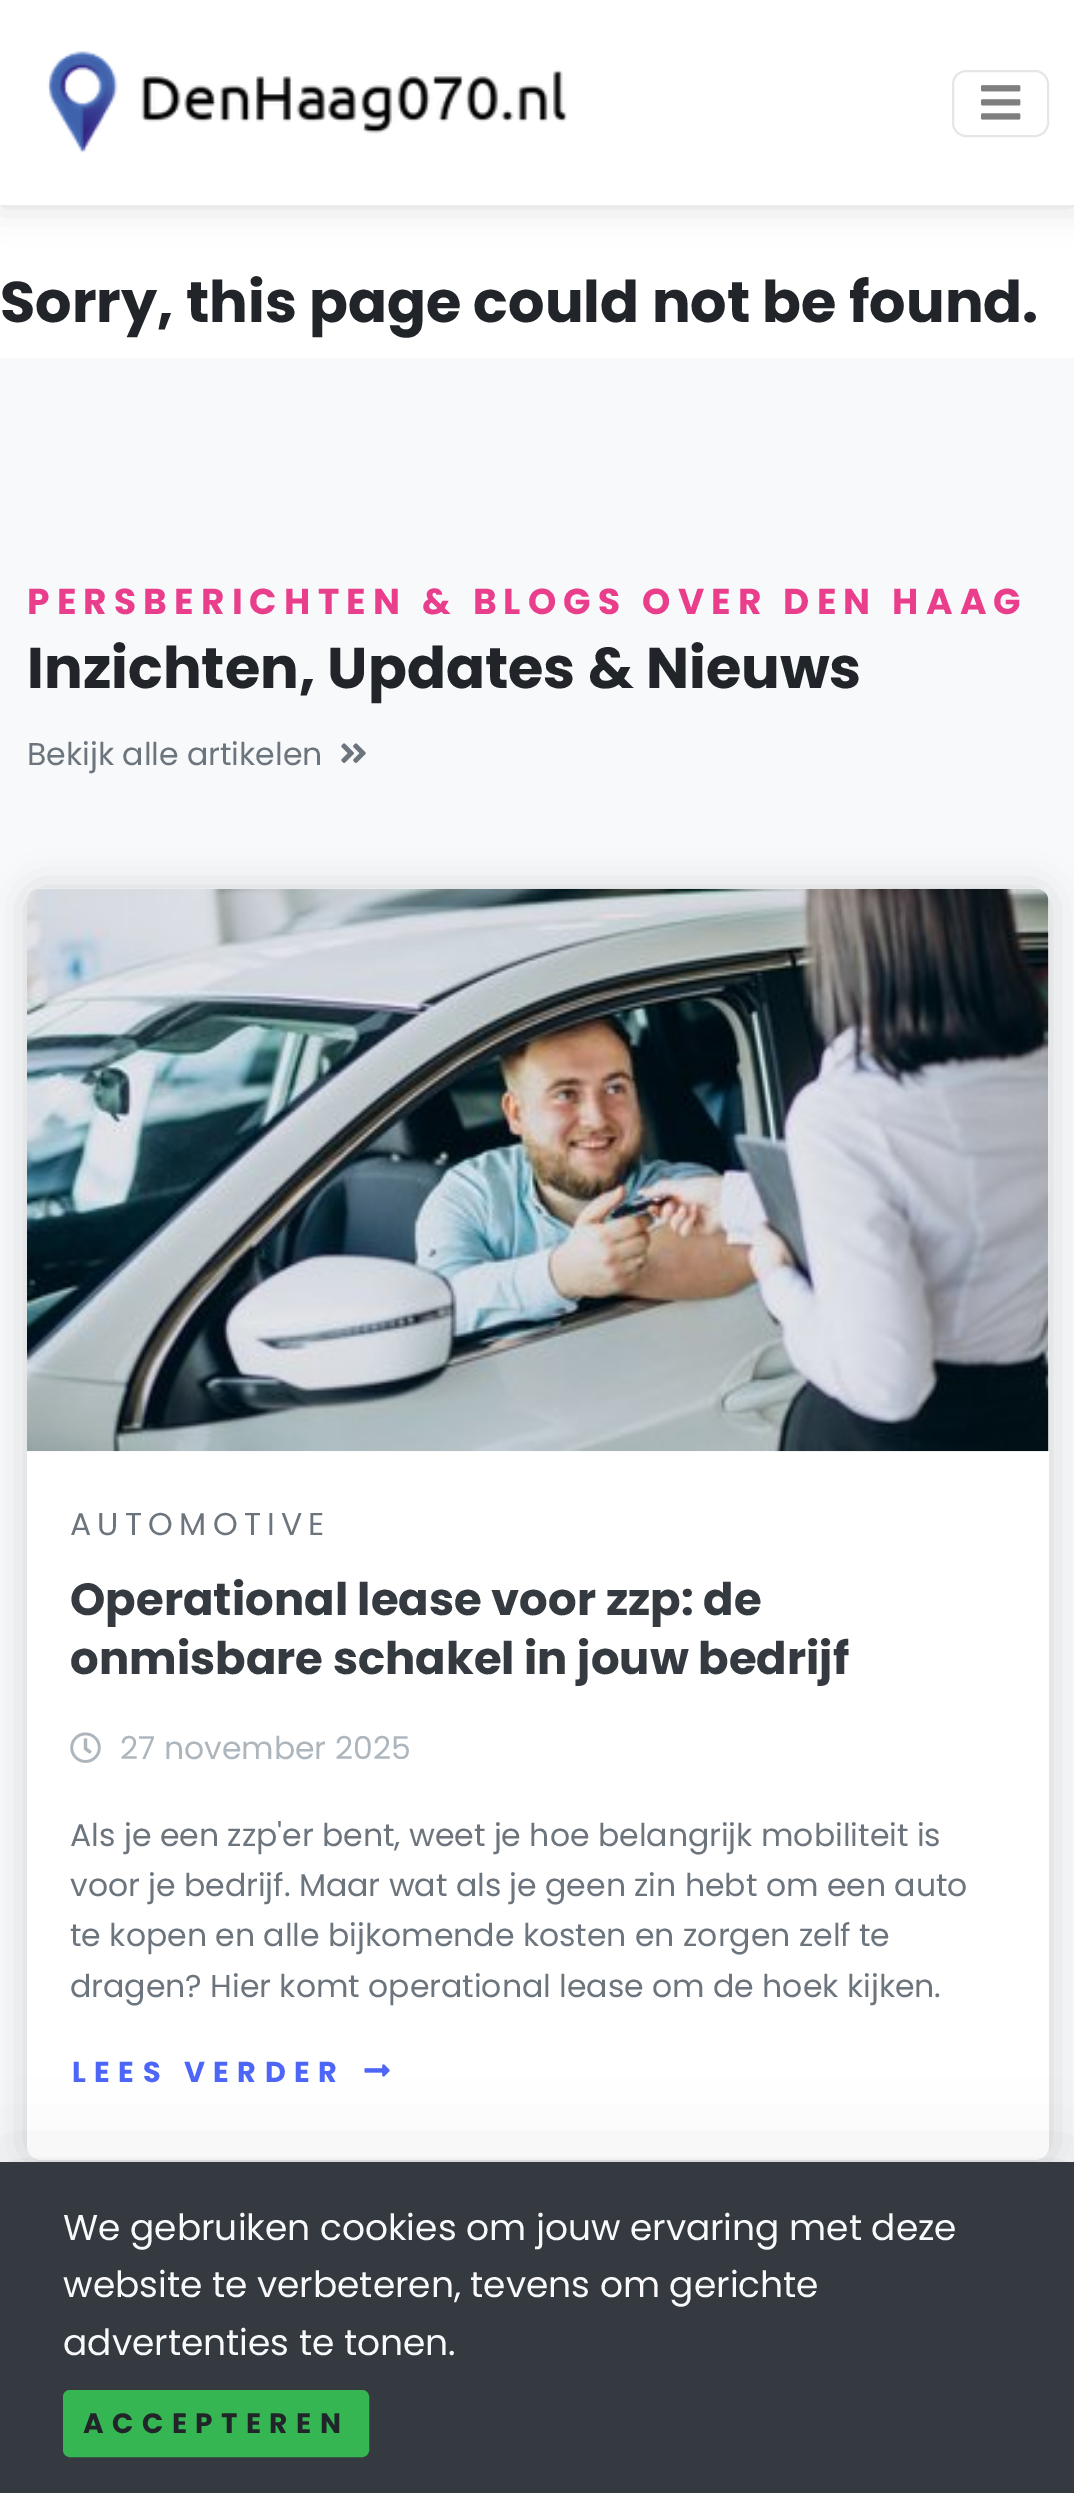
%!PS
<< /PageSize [1074 2493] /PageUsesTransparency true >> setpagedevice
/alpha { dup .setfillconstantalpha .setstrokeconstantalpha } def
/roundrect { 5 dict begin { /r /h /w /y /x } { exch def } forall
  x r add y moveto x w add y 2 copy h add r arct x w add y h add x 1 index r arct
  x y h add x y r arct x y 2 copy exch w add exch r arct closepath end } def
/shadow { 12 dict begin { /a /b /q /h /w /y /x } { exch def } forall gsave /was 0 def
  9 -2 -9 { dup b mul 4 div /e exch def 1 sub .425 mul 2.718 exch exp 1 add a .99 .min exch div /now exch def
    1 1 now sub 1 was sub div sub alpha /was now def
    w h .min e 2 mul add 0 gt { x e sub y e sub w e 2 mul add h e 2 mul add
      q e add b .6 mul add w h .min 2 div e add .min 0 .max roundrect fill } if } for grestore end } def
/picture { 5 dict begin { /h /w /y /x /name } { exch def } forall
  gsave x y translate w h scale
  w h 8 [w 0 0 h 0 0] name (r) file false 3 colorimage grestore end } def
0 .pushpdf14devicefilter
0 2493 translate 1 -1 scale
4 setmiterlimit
1 setgray
0 0 1074 2493 rectfill
0 setgray
0 0 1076 205 0 18 0.15 shadow
1 setgray
0 0 1074 205 rectfill
(img1.rgb) 47 51 520 102 picture
0.902 setgray
2 setlinewidth
953 71 95 65 13 roundrect stroke
(img2.rgb) 981 85 40 35 picture
/Poppins-Bold [57.4 0 0 -57.4 0 0] selectfont
0.129 0.145 0.161 setrgbcolor
0 322 moveto (Sorry, this page could not be found.) show
0.973 0.976 0.98 setrgbcolor
0 358 1074 1804 rectfill
/Poppins-Bold [36 0 0 -36 0 0] selectfont
0.91 0.243 0.549 setrgbcolor
27 614 moveto 7.2 0 (PERSBERICHTEN & BLOGS OVER DEN HAAG) ashow
/Poppins-Bold [57.4 0 0 -57.4 0 0] selectfont
0.129 0.145 0.161 setrgbcolor
27 688 moveto (Inzichten, Updates & Nieuws) show
/Poppins-Regular [31.5 0 0 -31.5 0 0] selectfont
0.424 0.459 0.49 setrgbcolor
27 765 moveto (Bekijk alle artikelen) show
(img3.rgb) 341 743 25 20 picture
0 setgray
27 889 1022 1271 14 18 0.15 shadow
1 setgray
27 889 1022 1271 14 roundrect fill
(img4.rgb) 27 888 1022 564 picture
0.424 0.459 0.49 setrgbcolor
70 1535 moveto 6.25 0 (AUTOMOTIVE) ashow
/Poppins-Bold [45 0 0 -45 0 0] selectfont
0.204 0.227 0.251 setrgbcolor
70 1615 moveto (Operational lease voor zzp: de) show
70 1674 moveto (onmisbare schakel in jouw bedrijf) show
(img5.rgb) 70 1732 31 31 picture
/Poppins-Regular [31.5 0 0 -31.5 0 0] selectfont
0.678 0.71 0.741 setrgbcolor
120 1759 moveto (27 november 2025) show
0.424 0.459 0.49 setrgbcolor
70 1846 moveto (Als je een zzp'er bent, weet je hoe belangrijk mobiliteit is) show
70 1896 moveto (voor je bedrijf. Maar wat als je geen zin hebt om een auto) show
70 1946 moveto (te kopen en alle bijkomende kosten en zorgen zelf te) show
70 1997 moveto (dragen? Hier komt operational lease om de hoek kijken.) show
/Poppins-Bold [28.75 0 0 -28.75 0 0] selectfont
0.306 0.4 0.973 setrgbcolor
72 2082 moveto 8.6 0 (LEES VERDER) ashow
(img6.rgb) 364 2064 26 13 picture
0 setgray
0 2198 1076 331 0 54 0.18 shadow
0.204 0.227 0.251 setrgbcolor
0 2162 1074 331 rectfill
/Poppins-Regular [36 0 0 -36 0 0] selectfont
0.973 0.976 0.98 setrgbcolor
63 2240 moveto (We gebruiken cookies om jouw ervaring met deze) show
63 2297 moveto (website te verbeteren, tevens om gerichte) show
63 2355 moveto (advertenties te tonen.) show
0.208 0.714 0.325 setrgbcolor
64 2391 304 65 6 roundrect gsave fill grestore
stroke
/Poppins-Bold [28 0 0 -28 0 0] selectfont
0.129 0.145 0.161 setrgbcolor
83 2433 moveto 8.4 0 (ACCEPTEREN) ashow
.poppdf14devicefilter showpage
